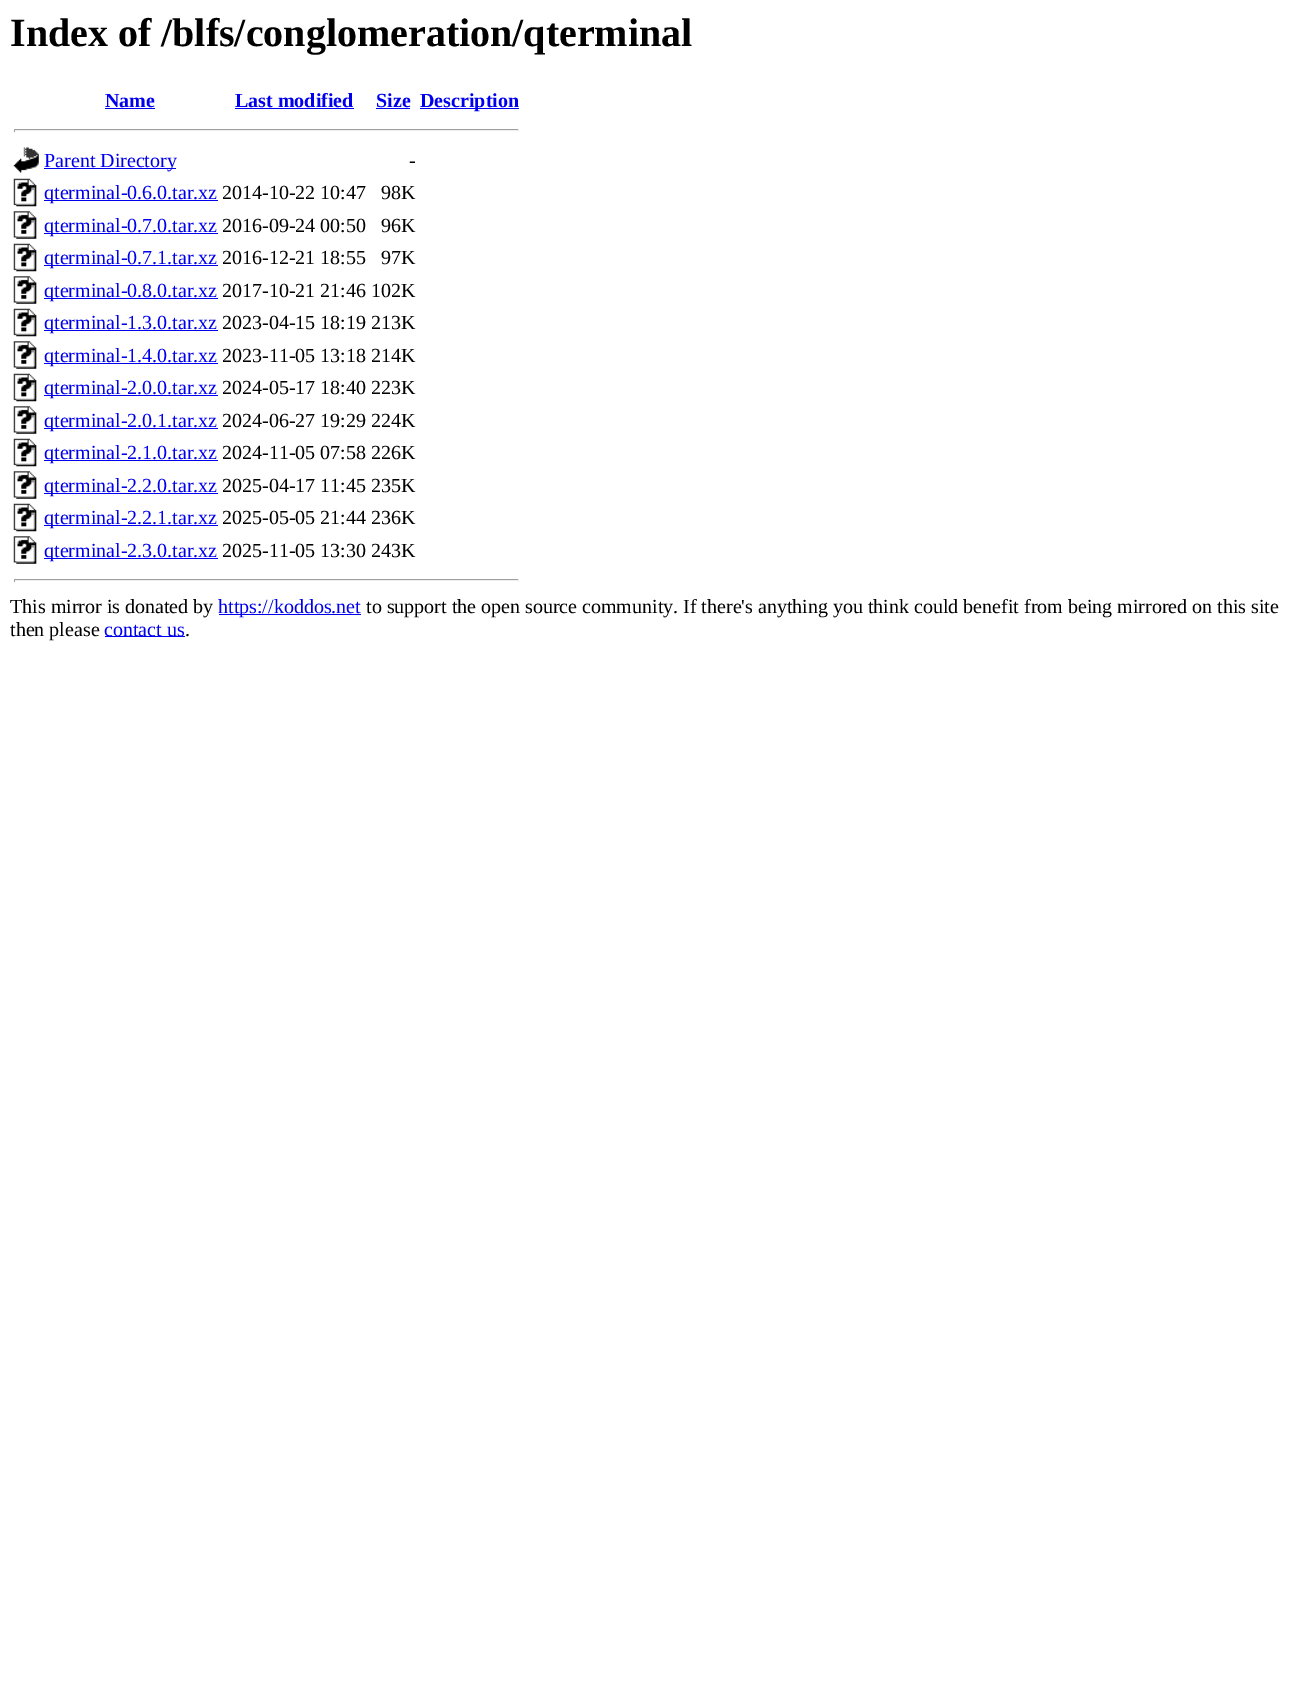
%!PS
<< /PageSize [1305 1693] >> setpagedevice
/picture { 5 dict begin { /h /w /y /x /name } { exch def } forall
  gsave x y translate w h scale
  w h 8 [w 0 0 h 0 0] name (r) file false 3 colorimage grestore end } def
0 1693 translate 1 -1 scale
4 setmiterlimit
1 setgray
0 0 1305 1693 rectfill
/LiberationSerif-Bold [40 0 0 -40 0 0] selectfont
0 setgray
10 46 moveto (Index of /blfs/conglomeration/qterminal) show
/LiberationSerif-Bold [20 0 0 -20 0 0] selectfont
0 0 0.933 setrgbcolor
105 107 moveto (Name) show
105 108 50 1 rectfill
235 107 moveto (Last modified) show
235 108 119 1 rectfill
376 107 moveto (Size) show
376 108 34 1 rectfill
420 108 99 1 rectfill
420 107 moveto (Description) show
0.624 setgray
14 129 505 1 rectfill
0.933 setgray
518 129 1 3 rectfill
14 130 505 1 rectfill
0.624 setgray
14 129 1 3 rectfill
(img1.rgb) 13 147 26 26 picture
0 0 0.933 setrgbcolor
44 168 132 1 rectfill
/LiberationSerif-Regular [20 0 0 -20 0 0] selectfont
44 167 moveto (Parent Directory) show
0 setgray
409 167 moveto (-) show
(img2.rgb) 13 178 24 29 picture
0 0 0.933 setrgbcolor
44 200 174 1 rectfill
44 199 moveto (qterminal-0.6.0.tar.xz) show
0 setgray
222 199 moveto (2014-10-22 10:47) show
381 199 moveto (98K) show
(img3.rgb) 13 211 24 28 picture
0 0 0.933 setrgbcolor
44 233 174 1 rectfill
44 232 moveto (qterminal-0.7.0.tar.xz) show
0 setgray
222 232 moveto (2016-09-24 00:50) show
381 232 moveto (96K) show
(img2.rgb) 13 243 24 29 picture
0 0 0.933 setrgbcolor
44 265 174 1 rectfill
44 264 moveto (qterminal-0.7.1.tar.xz) show
0 setgray
222 264 moveto (2016-12-21 18:55) show
381 264 moveto (97K) show
(img4.rgb) 13 276 24 28 picture
0 0 0.933 setrgbcolor
44 298 174 1 rectfill
44 297 moveto (qterminal-0.8.0.tar.xz) show
0 setgray
222 297 moveto (2017-10-21 21:46 102K) show
(img2.rgb) 13 308 24 29 picture
0 0 0.933 setrgbcolor
44 330 174 1 rectfill
44 329 moveto (qterminal-1.3.0.tar.xz) show
0 setgray
222 329 moveto (2023-04-15 18:19 213K) show
(img3.rgb) 13 341 24 28 picture
0 0 0.933 setrgbcolor
44 363 174 1 rectfill
44 362 moveto (qterminal-1.4.0.tar.xz) show
0 setgray
222 362 moveto (2023-11-05 13:18 214K) show
(img2.rgb) 13 373 24 29 picture
0 0 0.933 setrgbcolor
44 395 174 1 rectfill
44 394 moveto (qterminal-2.0.0.tar.xz) show
0 setgray
222 394 moveto (2024-05-17 18:40 223K) show
(img3.rgb) 13 406 24 28 picture
0 0 0.933 setrgbcolor
44 428 174 1 rectfill
44 427 moveto (qterminal-2.0.1.tar.xz) show
0 setgray
222 427 moveto (2024-06-27 19:29 224K) show
(img2.rgb) 13 438 24 29 picture
0 0 0.933 setrgbcolor
44 460 174 1 rectfill
44 459 moveto (qterminal-2.1.0.tar.xz) show
0 setgray
222 459 moveto (2024-11-05 07:58 226K) show
(img3.rgb) 13 471 24 28 picture
0 0 0.933 setrgbcolor
44 493 174 1 rectfill
44 492 moveto (qterminal-2.2.0.tar.xz) show
0 setgray
222 492 moveto (2025-04-17 11:45 235K) show
(img2.rgb) 13 503 24 29 picture
0 0 0.933 setrgbcolor
44 525 174 1 rectfill
44 524 moveto (qterminal-2.2.1.tar.xz) show
0 setgray
222 524 moveto (2025-05-05 21:44 236K) show
(img3.rgb) 13 536 24 28 picture
0 0 0.933 setrgbcolor
44 558 174 1 rectfill
44 557 moveto (qterminal-2.3.0.tar.xz) show
0 setgray
222 557 moveto (2025-11-05 13:30 243K) show
0.624 setgray
14 579 505 1 rectfill
0.933 setgray
518 579 1 3 rectfill
14 580 505 1 rectfill
0.624 setgray
14 579 1 3 rectfill
0 setgray
10 613 moveto (This mirror is donated by) show
0 0 0.933 setrgbcolor
219 614 142 1 rectfill
218 613 moveto (https://koddos.net) show
0 setgray
366 613 moveto (to support the open source community. If there's anything you think could benefit from being mirrored on this site) show
10 636 moveto (then please) show
0 0 0.933 setrgbcolor
105 636 80 1 rectfill
104 636 moveto (contact us) show
0 setgray
185 636 moveto (.) show
showpage
